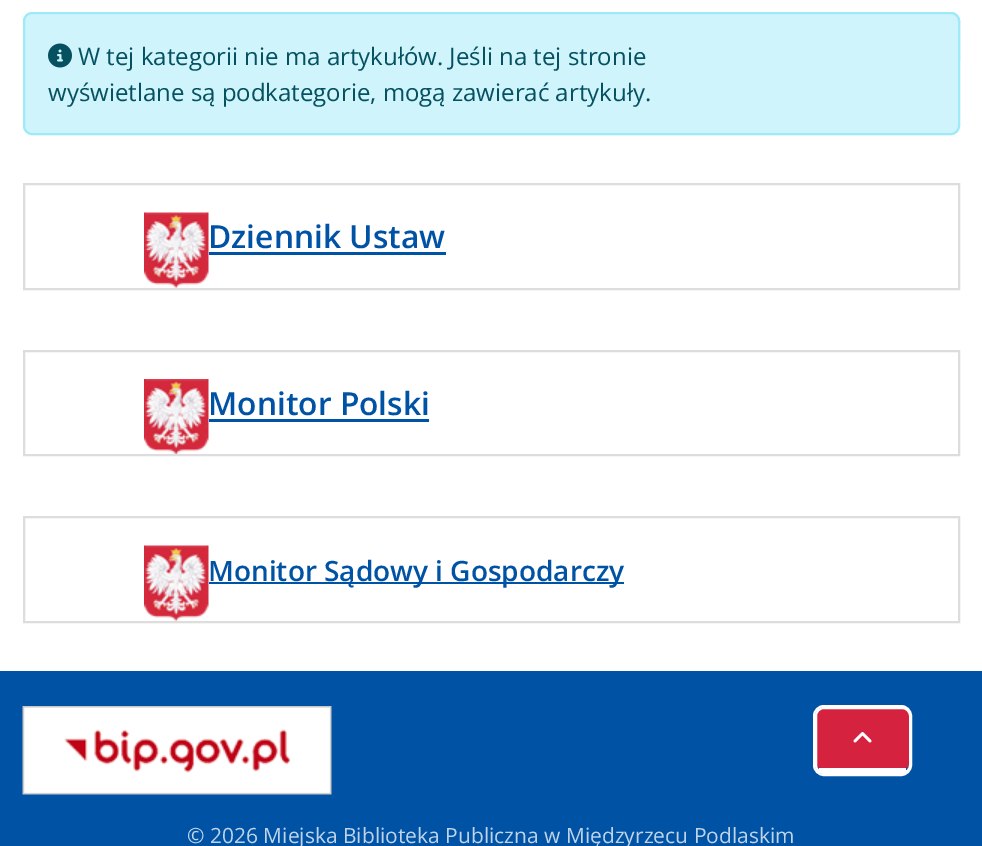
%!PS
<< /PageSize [982 846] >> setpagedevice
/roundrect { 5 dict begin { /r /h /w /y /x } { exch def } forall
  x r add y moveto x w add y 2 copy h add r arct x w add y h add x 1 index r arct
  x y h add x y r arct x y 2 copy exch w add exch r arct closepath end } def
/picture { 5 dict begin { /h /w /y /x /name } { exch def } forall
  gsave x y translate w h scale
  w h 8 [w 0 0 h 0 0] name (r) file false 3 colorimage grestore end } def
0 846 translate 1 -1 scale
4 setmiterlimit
1 setgray
0 0 982 846 rectfill
0.871 0.886 0.902 setrgbcolor
2 setlinewidth
777 13 182 55 8 roundrect stroke
0.812 0.957 0.988 setrgbcolor
24 13 935 121 8 roundrect gsave fill grestore
0.62 0.918 0.976 setrgbcolor
stroke
(img1.rgb) 48 43 24 25 picture
/OpenSans-Regular [24 0 0 -24 0 0] selectfont
0.02 0.318 0.376 setrgbcolor
78 65 moveto (W tej kategorii nie ma artykułów. Jeśli na tej stronie) show
48 101 moveto (wyświetlane są podkategorie, mogą zawierać artykuły.) show
0.867 setgray
24 184 935 105 rectstroke
(img2.rgb) 144 212 65 76 picture
/OpenSans-SemiBold [31.75 0 0 -31.75 0 0] selectfont
0 0.322 0.647 setrgbcolor
208 248 moveto (Dziennik Ustaw) show
209 252 237 3 rectfill
0.867 setgray
24 351 935 104 rectstroke
(img3.rgb) 144 379 65 75 picture
0 0.322 0.647 setrgbcolor
208 415 moveto (Monitor Polski) show
209 419 220 3 rectfill
0.867 setgray
24 517 935 105 rectstroke
(img2.rgb) 144 545 65 76 picture
0 0.322 0.647 setrgbcolor
209 582 415 2 rectfill
/OpenSans-SemiBold [28 0 0 -28 0 0] selectfont
208 581 moveto (Monitor Sądowy i Gospodarczy) show
0 671 982 175 rectfill
1 setgray
814 706 97 69 10 roundrect stroke
0.835 0.137 0.247 setrgbcolor
newpath 824 708 moveto 902 708 lineto 906 708 909 711 909 716 curveto 909 765 lineto 909 767 906 768 902 768 curveto 824 768 lineto 819 768 816 767 816 765 curveto 816 716 lineto 816 711 819 708 824 708 curveto closepath fill
1 setgray
816 708 94 65 8 roundrect stroke
819 768 87 5 rectfill
(img4.rgb) 853 732 19 11 picture
(img5.rgb) 22 706 310 89 picture
/OpenSans-Regular [21 0 0 -21 0 0] selectfont
0.749 0.831 0.914 setrgbcolor
187 843 moveto (© 2026 Miejska Biblioteka Publiczna w Międzyrzecu Podlaskim) show
showpage
